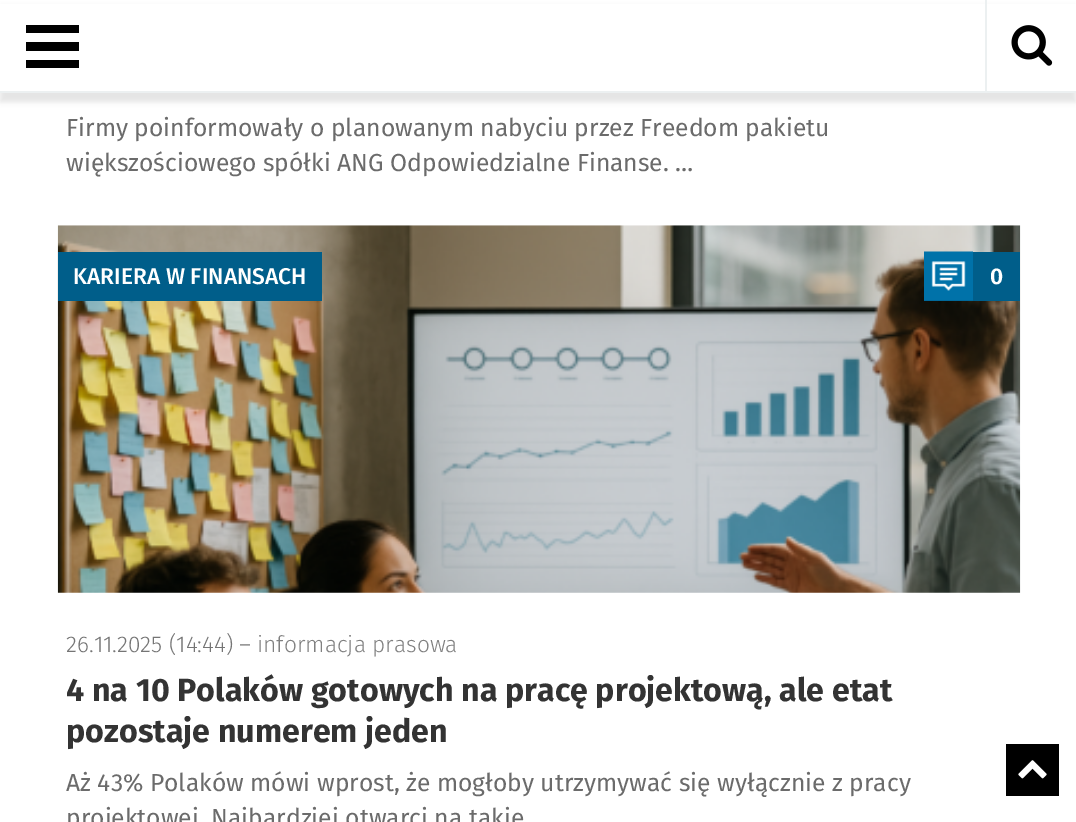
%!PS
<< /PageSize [1076 822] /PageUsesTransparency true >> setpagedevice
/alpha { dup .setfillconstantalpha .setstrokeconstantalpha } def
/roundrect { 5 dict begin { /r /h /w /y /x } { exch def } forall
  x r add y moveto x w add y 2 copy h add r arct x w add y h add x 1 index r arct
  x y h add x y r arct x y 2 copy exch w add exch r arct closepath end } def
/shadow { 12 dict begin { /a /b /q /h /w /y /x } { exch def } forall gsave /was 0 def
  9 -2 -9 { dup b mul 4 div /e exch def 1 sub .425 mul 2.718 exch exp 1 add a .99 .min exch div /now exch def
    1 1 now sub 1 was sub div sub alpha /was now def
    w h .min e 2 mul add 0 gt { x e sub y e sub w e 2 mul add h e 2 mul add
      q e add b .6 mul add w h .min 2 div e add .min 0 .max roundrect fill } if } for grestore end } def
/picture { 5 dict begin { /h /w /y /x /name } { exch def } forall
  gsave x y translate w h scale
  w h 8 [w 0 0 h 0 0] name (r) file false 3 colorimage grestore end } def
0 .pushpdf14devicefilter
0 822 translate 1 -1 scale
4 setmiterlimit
1 setgray
0 0 1076 822 rectfill
0 setgray
0 7 1076 95 0 2.5 0.1 shadow
1 setgray
0 4 1076 87 rectfill
0.925 0.941 0.945 setrgbcolor
0 91 1076 2 rectfill
0 setgray
26 25 53 8 rectfill
26 42 53 9 rectfill
26 60 53 8 rectfill
0.925 0.941 0.945 setrgbcolor
985 0 2 91 rectfill
(img1.rgb) 1011 25 42 41 picture
/FiraSans-Regular [24.65 0 0 -24.65 0 0] selectfont
0.42 setgray
66 136 moveto (Firmy poinformowały o planowanym nabyciu przez Freedom pakietu) show
66 171 moveto (większościowego spółki ANG Odpowiedzialne Finanse. …) show
(img2.rgb) 57 225 964 368 picture
0 0.369 0.541 setrgbcolor
58 252 264 49 rectfill
/FiraSans-Medium [22.75 0 0 -22.75 0 0] selectfont
1 setgray
73 284 moveto (KARIERA W FINANSACH) show
0 0.369 0.541 setrgbcolor
924 252 96 49 rectfill
(img3.rgb) 924 251 49 50 picture
/FiraSans-SemiBold [22.75 0 0 -22.75 0 0] selectfont
1 setgray
990 284 moveto (0) show
/FiraSans-Light [22.75 0 0 -22.75 0 0] selectfont
0.459 setgray
66 652 moveto (26.11.2025 \(14:44\) –) show
0.502 setgray
257 652 moveto (informacja prasowa) show
/FiraSans-Bold [32.2 0 0 -32.2 0 0] selectfont
0.2 setgray
66 701 moveto (4 na 10 Polaków gotowych na pracę projektową, ale etat) show
66 742 moveto (pozostaje numerem jeden) show
/FiraSans-Regular [24.65 0 0 -24.65 0 0] selectfont
0.42 setgray
66 791 moveto (Aż 43% Polaków mówi wprost, że mogłoby utrzymywać się wyłącznie z pracy) show
66 826 moveto (projektowej. Najbardziej otwarci na takie) show
0 setgray
1006 744 53 52 rectfill
(img4.rgb) 1018 760 29 19 picture
.poppdf14devicefilter showpage
